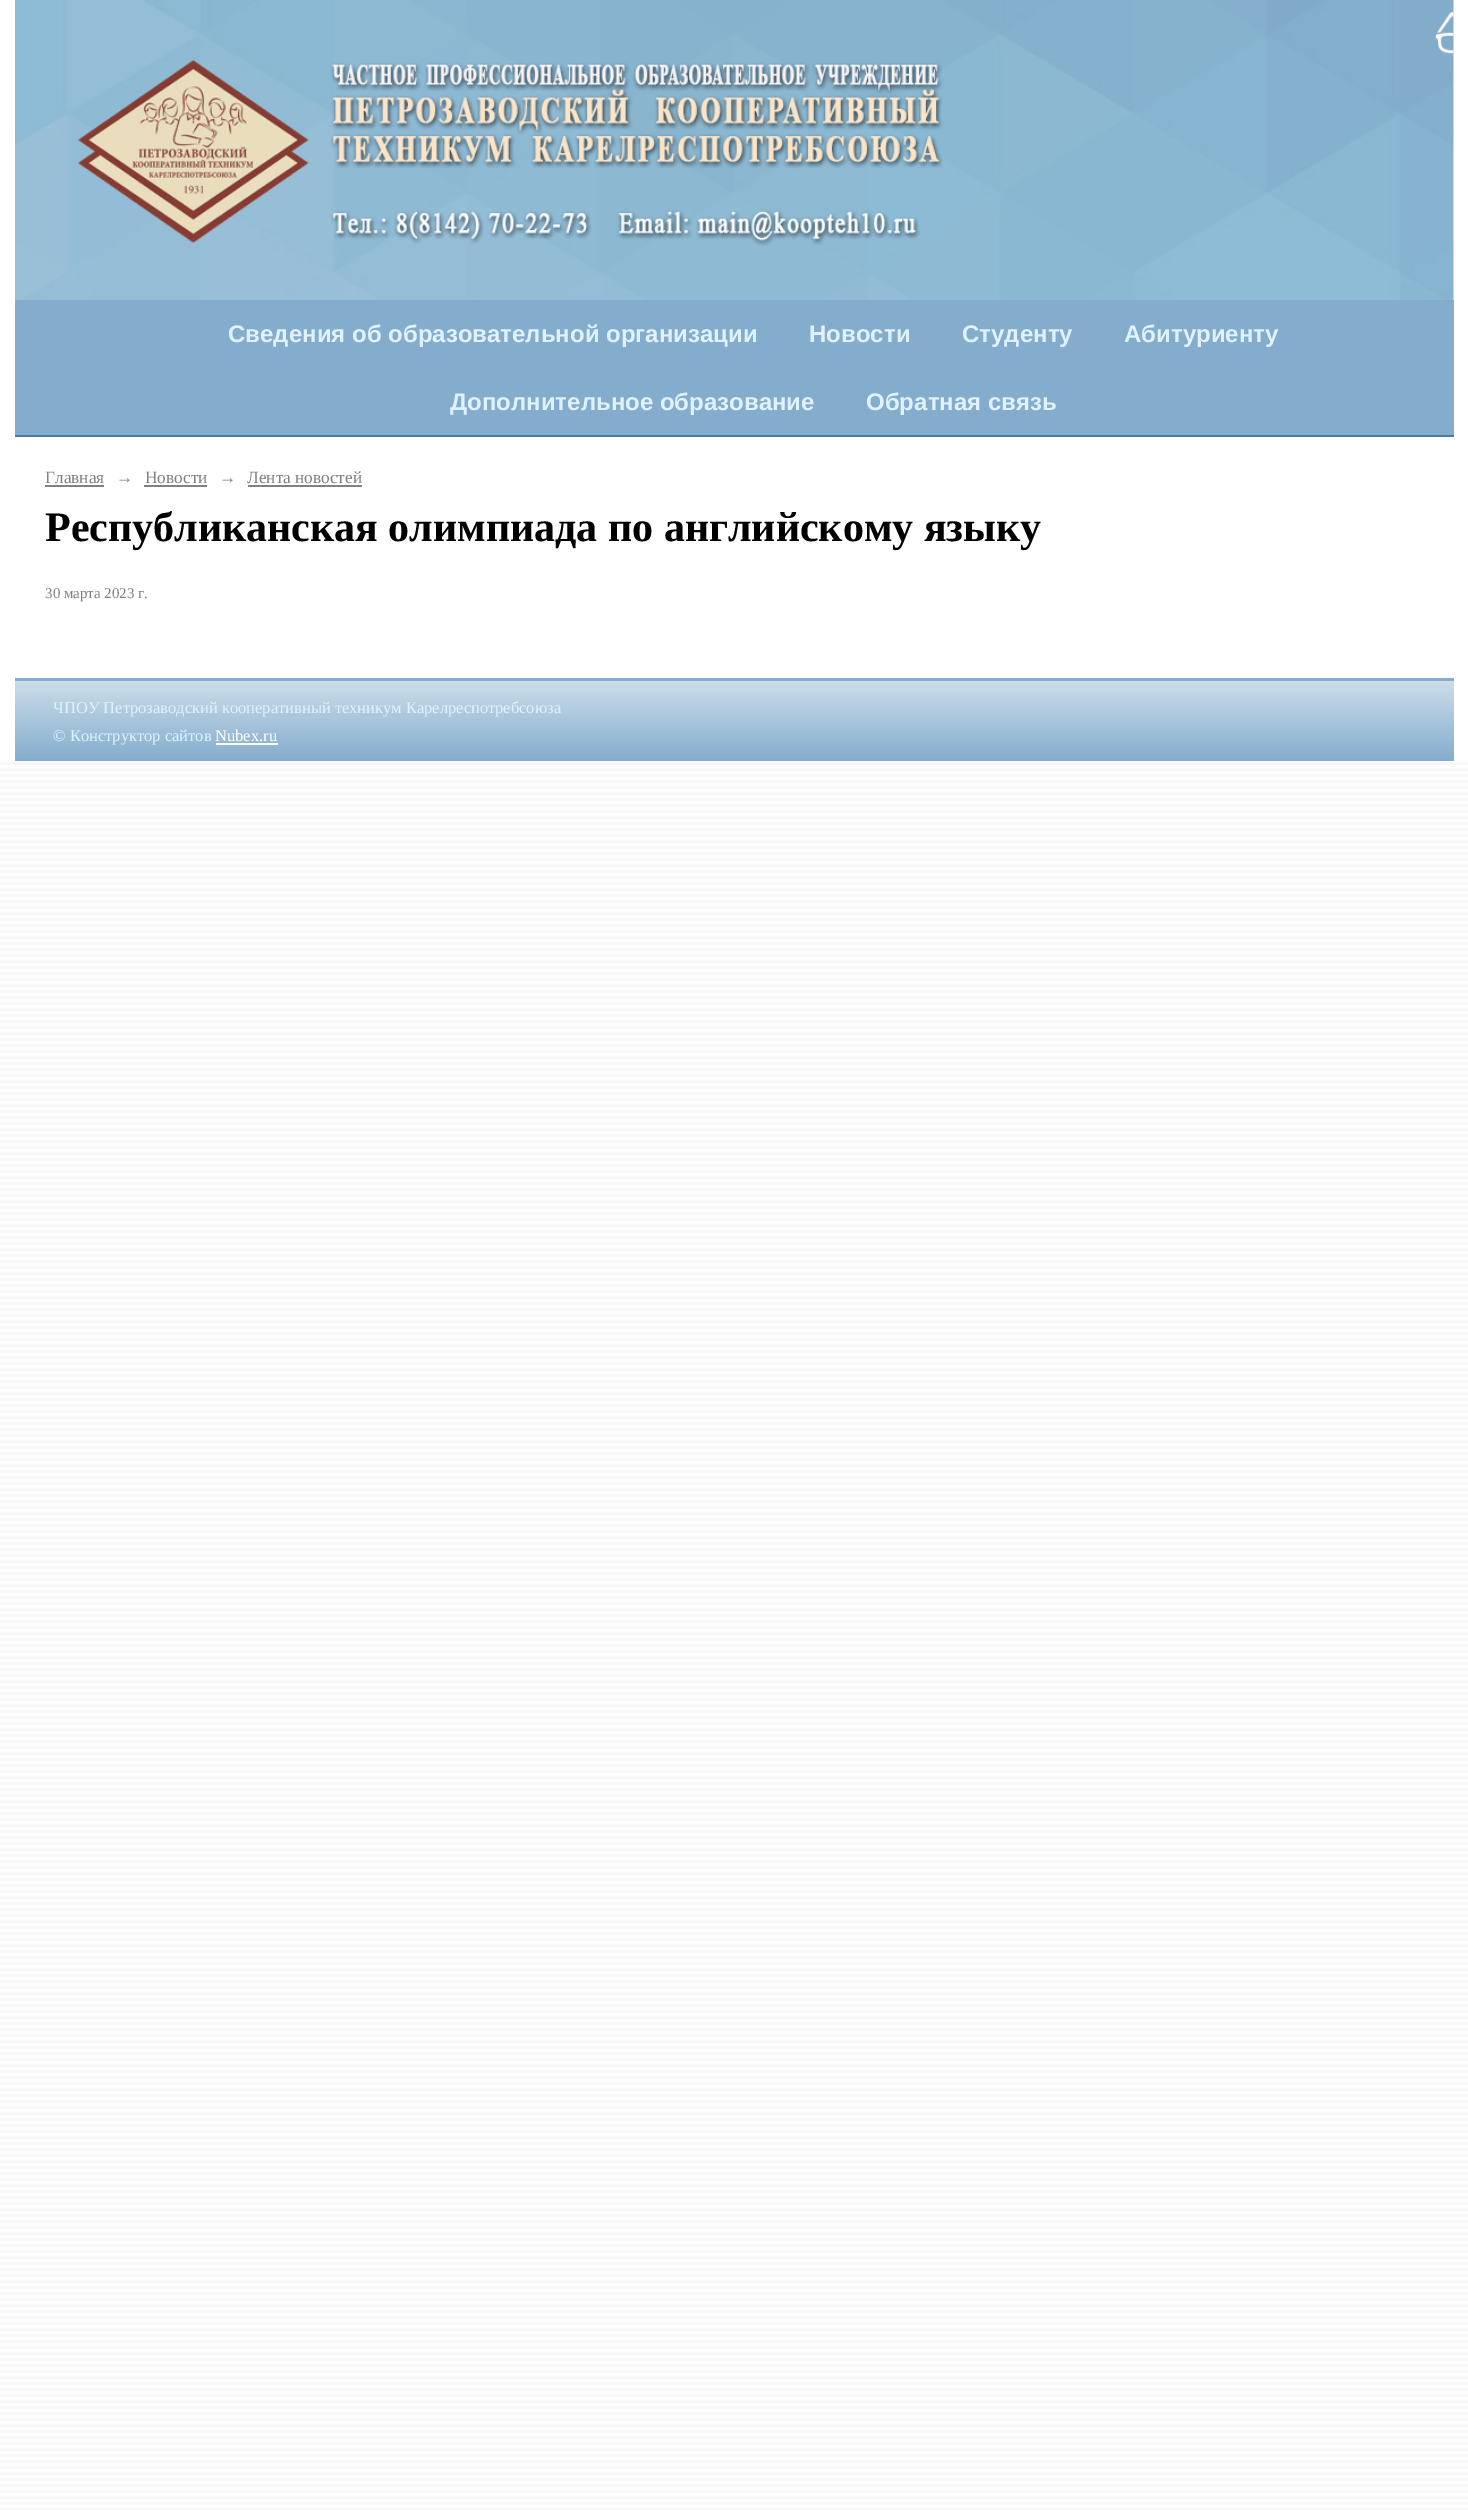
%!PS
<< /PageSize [1468 2510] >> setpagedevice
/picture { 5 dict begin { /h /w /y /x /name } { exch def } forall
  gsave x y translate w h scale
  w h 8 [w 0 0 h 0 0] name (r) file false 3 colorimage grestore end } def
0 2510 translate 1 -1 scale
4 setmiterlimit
1 setgray
0 0 1468 2510 rectfill
(img1.rgb) 0 761 1468 1749 picture
(img2.rgb) 15 0 1439 300 picture
(img3.rgb) 1435 11 19 43 picture
(img4.rgb) 78 60 865 186 picture
0.518 0.678 0.804 setrgbcolor
15 300 1439 135 rectfill
0.267 0.486 0.655 setrgbcolor
15 435 1439 2 rectfill
/LiberationSans-Bold [24 0 0 -24 0 0] selectfont
0.878 0.949 1 setrgbcolor
228 342 moveto (Сведения об образовательной организации) show
809 342 moveto (Новости) show
962 342 moveto (Студенту) show
1124 342 moveto (Абитуриенту) show
450 410 moveto (Дополнительное образование) show
866 410 moveto (Обратная связь) show
/LiberationSerif-Regular [17.25 0 0 -17.25 0 0] selectfont
0.502 setgray
45 483 moveto (Главная) show
45 485 59 2 rectfill
/LiberationSerif-Italic [17.25 0 0 -17.25 0 0] selectfont
116 483 moveto (→) show
/LiberationSerif-Regular [17.25 0 0 -17.25 0 0] selectfont
145 483 moveto (Новости) show
144 485 63 2 rectfill
/LiberationSerif-Italic [17.25 0 0 -17.25 0 0] selectfont
219 483 moveto (→) show
/LiberationSerif-Regular [17.25 0 0 -17.25 0 0] selectfont
247 483 moveto (Лента новостей) show
248 485 114 2 rectfill
/LiberationSerif-Bold [42 0 0 -42 0 0] selectfont
0 setgray
45 541 moveto (Республиканская олимпиада по английскому языку) show
/LiberationSerif-Regular [15 0 0 -15 0 0] selectfont
0.502 setgray
45 598 moveto (30 марта 2023 г.) show
0.518 0.678 0.804 setrgbcolor
15 678 1439 3 rectfill
gsave newpath 15 681 moveto 1454 681 lineto 1454 761 lineto 15 761 lineto closepath clip newpath
<< /ShadingType 2 /ColorSpace /DeviceRGB /Coords [734 681 734 761] /Extend [true true] /Function << /FunctionType 2 /Domain [0 1] /C0 [0.8 0.867 0.918] /C1 [0.518 0.678 0.804] /N 1 >> >> shfill grestore
/LiberationSerif-Regular [16.5 0 0 -16.5 0 0] selectfont
0.878 0.949 1 setrgbcolor
53 713 moveto (ЧПОУ Петрозаводский кооперативный техникум Карелреспотребсоюза) show
53 741 moveto (© Конструктор сайтов) show
1 setgray
215 741 moveto (Nubex.ru) show
216 743 62 2 rectfill
showpage
